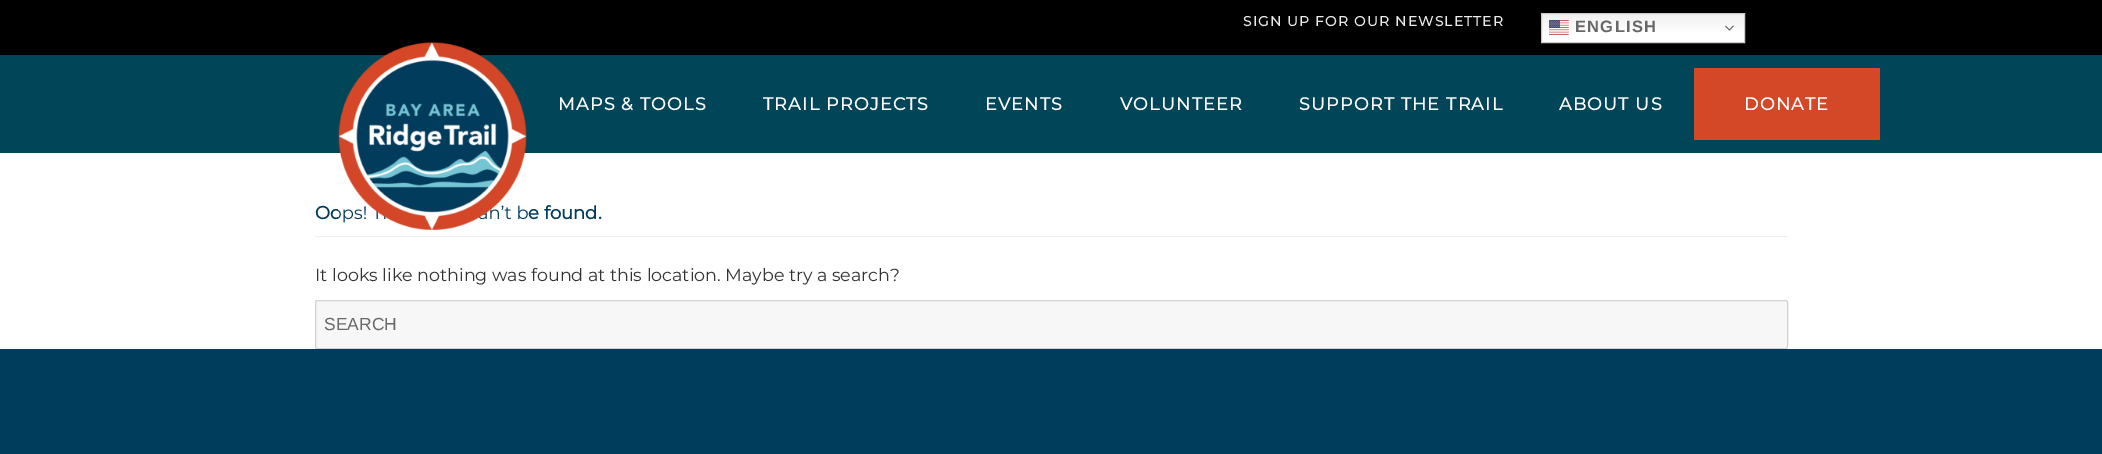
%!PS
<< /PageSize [2102 454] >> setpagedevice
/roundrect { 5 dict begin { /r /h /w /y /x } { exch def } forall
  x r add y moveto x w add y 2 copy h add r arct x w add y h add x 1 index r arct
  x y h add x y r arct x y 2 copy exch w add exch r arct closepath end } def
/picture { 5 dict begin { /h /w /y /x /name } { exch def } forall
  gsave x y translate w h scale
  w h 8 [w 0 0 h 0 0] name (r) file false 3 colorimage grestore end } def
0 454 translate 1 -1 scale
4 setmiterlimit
1 setgray
0 0 2102 454 rectfill
0 setgray
0 0 2102 55 rectfill
/Montserrat-Bold [13.75 0 0 -13.75 0 0] selectfont
0.922 setgray
1243 26 moveto 1.25 0 (SIGN UP FOR OUR NEWSLETTER) ashow
gsave newpath 1542 14 moveto 1744 14 lineto 1744 42 lineto 1542 42 lineto closepath clip newpath
<< /ShadingType 2 /ColorSpace /DeviceRGB /Coords [1643 12 1643 43] /Extend [true true] /Function << /FunctionType 3 /Domain [0 1] /Functions [<< /FunctionType 2 /Domain [0 1] /C0 [0.937 0.937 0.937] /C1 [1 1 1] /N 1 >> << /FunctionType 2 /Domain [0 1] /C0 [1 1 1] /C1 [1 1 1] /N 1 >>] /Bounds [0.7] /Encode [0 1 0 1] >> >> shfill grestore
0.8 setgray
1541.5 13.5 203 29 rectstroke
(img1.rgb) 1549 20 20 15 picture
/LiberationSans-Bold [16.5 0 0 -16.5 0 0] selectfont
0.408 setgray
1575 32 moveto 1.25 0 (ENGLISH) ashow
(img2.rgb) 1725 25 9 6 picture
0 0.271 0.345 setrgbcolor
0 55 2102 98 rectfill
/Montserrat-Bold [18 0 0 -18 0 0] selectfont
0 0.227 0.365 setrgbcolor
315 219 moveto (Oops!) show
488 219 moveto (n’t be found.) show
(img3.rgb) 338 42 189 188 picture
/Montserrat-Bold [17.5 0 0 -17.5 0 0] selectfont
1 setgray
558 110 moveto 1.25 0 (MAPS & TOOLS) ashow
763 110 moveto 1.25 0 (TRAIL PROJECTS) ashow
985 110 moveto 1.25 0 (EVENTS) ashow
1120 110 moveto 1.25 0 (VOLUNTEER) ashow
1299 110 moveto 1.25 0 (SUPPORT THE TRAIL) ashow
1559 110 moveto 1.25 0 (ABOUT US) ashow
0.831 0.278 0.153 setrgbcolor
1694 68 186 72 rectfill
1 setgray
1744 110 moveto 1.25 0 (DONATE) ashow
0.933 setgray
315 236 1473 1 rectfill
/Montserrat-Thin [17.5 0 0 -17.5 0 0] selectfont
0.2 setgray
315 281 moveto (It looks like nothing was found at this location. Maybe try a search?) show
0.969 setgray
315.5 300.5 1472 48 2 roundrect gsave fill grestore
0.82 setgray
stroke
/LiberationSans-Regular [17.5 0 0 -17.5 0 0] selectfont
0.408 setgray
324 330 moveto (SEARCH) show
0 0.239 0.361 setrgbcolor
0 349 2102 105 rectfill
showpage
